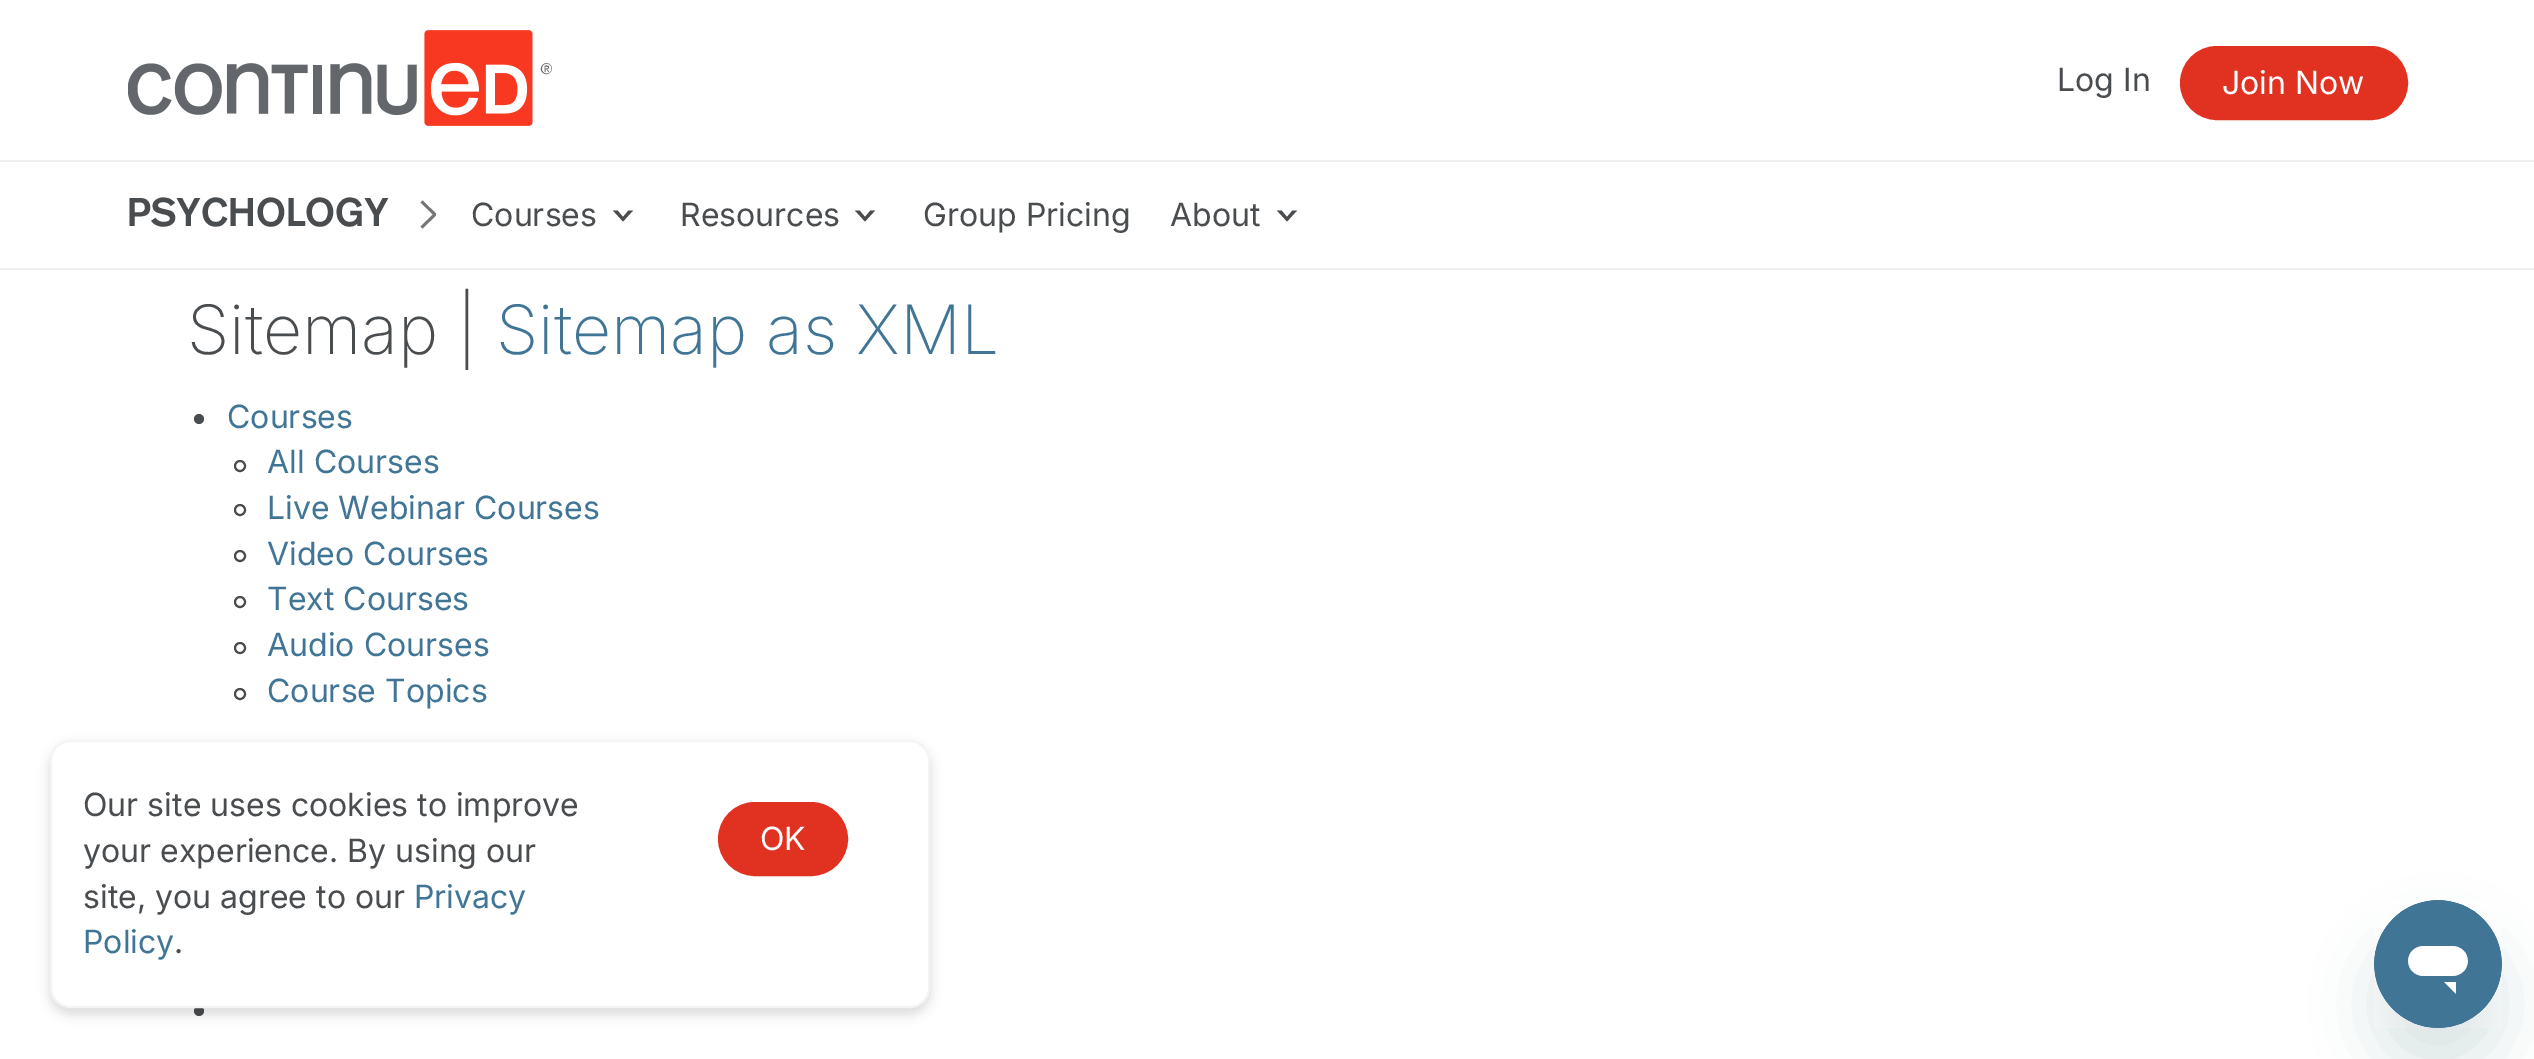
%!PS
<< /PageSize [2534 1059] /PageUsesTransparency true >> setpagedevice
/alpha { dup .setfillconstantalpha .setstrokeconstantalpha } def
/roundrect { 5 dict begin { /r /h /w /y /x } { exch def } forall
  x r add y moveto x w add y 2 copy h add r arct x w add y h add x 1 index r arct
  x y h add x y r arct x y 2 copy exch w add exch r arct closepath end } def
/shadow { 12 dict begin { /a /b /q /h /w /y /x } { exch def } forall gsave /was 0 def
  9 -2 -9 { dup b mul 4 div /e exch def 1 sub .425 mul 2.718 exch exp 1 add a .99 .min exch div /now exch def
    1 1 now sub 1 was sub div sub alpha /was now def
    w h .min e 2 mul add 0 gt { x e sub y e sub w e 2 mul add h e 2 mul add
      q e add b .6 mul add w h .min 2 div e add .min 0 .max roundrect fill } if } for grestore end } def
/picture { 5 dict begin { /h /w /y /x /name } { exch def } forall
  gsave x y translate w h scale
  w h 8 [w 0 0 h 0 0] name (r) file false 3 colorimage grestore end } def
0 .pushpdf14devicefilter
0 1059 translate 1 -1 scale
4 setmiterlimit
1 setgray
0 0 2534 1059 rectfill
(img1.rgb) 128 30 424 96 picture
/Inter-Regular [32 0 0 -32 0 0] selectfont
0.29 0.302 0.314 setrgbcolor
2057 91 moveto (Log In) show
0.882 0.192 0.129 setrgbcolor
2181 47 226 72 36 roundrect gsave fill grestore
2 setlinewidth
stroke
1 setgray
2222 94 moveto (Join Now) show
0.933 setgray
0 160 2534 2 rectfill
/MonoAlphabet-Thin [40 0 0 -40 0 0] selectfont
0.29 0.302 0.314 setrgbcolor
127 226 moveto (PSYCHOLOGY) show
gsave
420 200 16 30 rectclip
0.459 setgray
newpath 422.5 228.5 moveto 420.5 226.5 lineto 433 214.5 lineto 420.5 202.5 lineto 422.5 200.5 lineto 437 214.5 lineto closepath fill
grestore
/Inter-Regular [32 0 0 -32 0 0] selectfont
471 226 moveto (Courses) show
newpath 628.5 210.5 moveto 623 217 lineto 617.5 210.5 lineto 613 210.5 lineto 623 221.5 lineto 633 210.5 lineto closepath fill
680 226 moveto (Resources) show
newpath 870.5 210.5 moveto 865 217 lineto 859.5 210.5 lineto 855 210.5 lineto 865 221.5 lineto 875 210.5 lineto closepath fill
923 226 moveto (Group Pricing) show
1170 226 moveto (About) show
newpath 1292.5 210.5 moveto 1287 217 lineto 1281.5 210.5 lineto 1277 210.5 lineto 1287 221.5 lineto 1297 210.5 lineto closepath fill
0.933 setgray
0 268 2534 2 rectfill
/Inter-ExtraLight [68 0 0 -68 0 0] selectfont
0.29 0.302 0.314 setrgbcolor
187 354 moveto (Sitemap |) show
0.251 0.459 0.588 setrgbcolor
496 354 moveto (Sitemap as XML) show
0.29 0.302 0.314 setrgbcolor
newpath 199 419 5 0 360 arc closepath fill
/Inter-Regular [32 0 0 -32 0 0] selectfont
0.251 0.459 0.588 setrgbcolor
227 428 moveto (Courses) show
0.29 0.302 0.314 setrgbcolor
newpath 240 466 5 0 360 arc closepath stroke
0.251 0.459 0.588 setrgbcolor
267 473 moveto (All Courses) show
0.29 0.302 0.314 setrgbcolor
newpath 240 510 5 0 360 arc closepath stroke
0.251 0.459 0.588 setrgbcolor
267 519 moveto (Live Webinar Courses) show
0.29 0.302 0.314 setrgbcolor
newpath 240 556 5 0 360 arc closepath stroke
0.251 0.459 0.588 setrgbcolor
267 565 moveto (Video Courses) show
0.29 0.302 0.314 setrgbcolor
newpath 240 602 5 0 360 arc closepath stroke
0.251 0.459 0.588 setrgbcolor
267 610 moveto (Text Courses) show
0.29 0.302 0.314 setrgbcolor
newpath 240 648 5 0 360 arc closepath stroke
0.251 0.459 0.588 setrgbcolor
267 656 moveto (Audio Courses) show
0.29 0.302 0.314 setrgbcolor
newpath 240 694 5 0 360 arc closepath stroke
0.251 0.459 0.588 setrgbcolor
267 702 moveto (Course Topics) show
0.29 0.302 0.314 setrgbcolor
newpath 199 1011 5 0 360 arc closepath fill
0 setgray
50 746 880 268 20 6 0.15 shadow
1 setgray
51 741 878 266 19 roundrect gsave fill grestore
0.957 setgray
stroke
0.29 0.302 0.314 setrgbcolor
83 816 moveto (Our site uses cookies to improve) show
83 862 moveto (your experience. By using our) show
83 908 moveto (site, you agree to our) show
0.251 0.459 0.588 setrgbcolor
414 908 moveto (Privacy) show
83 953 moveto (Policy) show
0.29 0.302 0.314 setrgbcolor
174 953 moveto (.) show
0.882 0.192 0.129 setrgbcolor
719 803 128 72 36 roundrect gsave fill grestore
stroke
1 setgray
760 850 moveto (OK) show
0.09 0.286 0.302 setrgbcolor
2374 940 128 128 64 30 0.15 shadow
(img2.rgb) 2374 900 128 128 picture
.poppdf14devicefilter showpage
